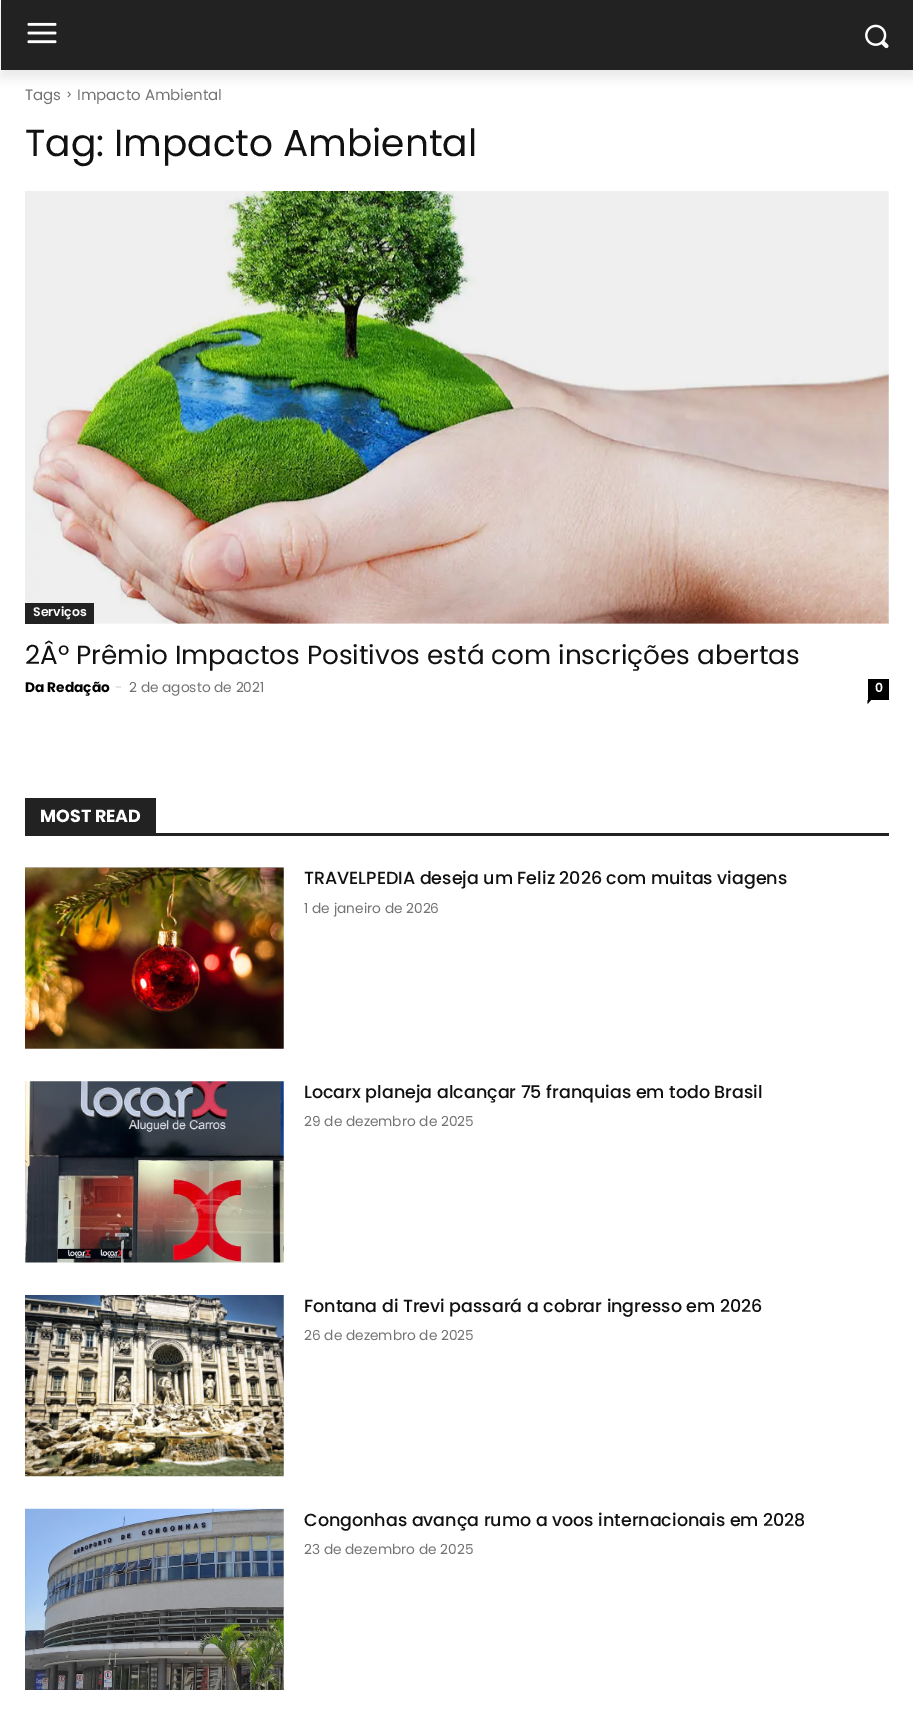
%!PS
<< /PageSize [913 1720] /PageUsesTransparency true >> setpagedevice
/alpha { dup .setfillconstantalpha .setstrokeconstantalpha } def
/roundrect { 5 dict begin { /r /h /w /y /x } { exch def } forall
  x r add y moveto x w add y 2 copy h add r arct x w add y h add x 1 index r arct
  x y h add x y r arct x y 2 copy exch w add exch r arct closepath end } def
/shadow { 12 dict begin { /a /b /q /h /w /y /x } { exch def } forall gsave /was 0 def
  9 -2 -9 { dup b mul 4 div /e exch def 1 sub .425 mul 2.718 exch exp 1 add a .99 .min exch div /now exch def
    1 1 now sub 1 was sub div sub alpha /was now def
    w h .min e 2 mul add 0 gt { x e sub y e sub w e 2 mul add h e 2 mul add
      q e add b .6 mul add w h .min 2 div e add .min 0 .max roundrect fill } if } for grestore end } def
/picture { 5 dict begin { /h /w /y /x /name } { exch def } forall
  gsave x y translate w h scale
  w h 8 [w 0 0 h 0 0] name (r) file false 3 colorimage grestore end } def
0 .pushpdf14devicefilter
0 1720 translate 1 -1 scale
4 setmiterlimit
1 setgray
0 0 913 1720 rectfill
0.133 setgray
1 0 912 70 rectfill
(img1.rgb) 27 22 30 22 picture
(img2.rgb) 865 24 24 25 picture
(img3.rgb) 67 91 4 7 picture
gsave
newpath 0 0 moveto 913 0 lineto 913 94 lineto 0 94 lineto closepath 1 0 moveto 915 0 lineto 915 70 lineto 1 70 lineto closepath eoclip newpath
0 setgray
1 8 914 70 0 5 0.08 shadow
grestore
/Poppins-Regular [15 0 0 -15 0 0] selectfont
0.455 setgray
25 100 moveto (Tags) show
77 100 moveto (Impacto Ambiental) show
/Poppins-Regular [37.5 0 0 -37.5 0 0] selectfont
0.067 setgray
25 156 moveto (Tag: Impacto Ambiental) show
(img4.rgb) 25 191 864 433 picture
0.133 setgray
25 603 69 21 rectfill
/Poppins-SemiBold [12.5 0 0 -12.5 0 0] selectfont
1 setgray
33 616 moveto (Serviços) show
/Poppins-Regular [26.25 0 0 -26.25 0 0] selectfont
0.067 setgray
25 664 moveto (2Âº Prêmio Impactos Positivos está com inscrições abertas) show
/Poppins-Bold [13.75 0 0 -13.75 0 0] selectfont
0 setgray
25 692 moveto (Da Redação) show
/Poppins-Regular [13.75 0 0 -13.75 0 0] selectfont
0.8 setgray
115 692 moveto (-) show
0.455 setgray
129 692 moveto (2 de agosto de 2021) show
0 setgray
868 679 21 21 rectfill
/Poppins-SemiBold [12.5 0 0 -12.5 0 0] selectfont
1 setgray
875 692 moveto (0) show
0 setgray
newpath 867.5 700 moveto 871 700 lineto 867.5 704 lineto closepath fill
0.133 setgray
25 833 864 3 rectfill
25 798 131 35 rectfill
/Poppins-Bold [17.5 0 0 -17.5 0 0] selectfont
1 setgray
40 822 moveto (MOST READ) show
(img5.rgb) 25 867 259 182 picture
/Poppins-Medium [17.5 0 0 -17.5 0 0] selectfont
0.067 setgray
304 884 moveto (TRAVELPEDIA deseja um Feliz 2026 com muitas viagens) show
/Poppins-Regular [13.75 0 0 -13.75 0 0] selectfont
0.455 setgray
304 913 moveto (1 de janeiro de 2026) show
(img6.rgb) 25 1081 259 182 picture
/Poppins-Medium [17.5 0 0 -17.5 0 0] selectfont
0.067 setgray
304 1098 moveto (Locarx planeja alcançar 75 franquias em todo Brasil) show
/Poppins-Regular [13.75 0 0 -13.75 0 0] selectfont
0.455 setgray
304 1126 moveto (29 de dezembro de 2025) show
(img7.rgb) 25 1295 259 182 picture
/Poppins-Medium [17.5 0 0 -17.5 0 0] selectfont
0.067 setgray
304 1312 moveto (Fontana di Trevi passará a cobrar ingresso em 2026) show
/Poppins-Regular [13.75 0 0 -13.75 0 0] selectfont
0.455 setgray
304 1340 moveto (26 de dezembro de 2025) show
(img8.rgb) 25 1508 259 182 picture
/Poppins-Medium [17.5 0 0 -17.5 0 0] selectfont
0.067 setgray
304 1526 moveto (Congonhas avança rumo a voos internacionais em 2028) show
/Poppins-Regular [13.75 0 0 -13.75 0 0] selectfont
0.455 setgray
304 1554 moveto (23 de dezembro de 2025) show
.poppdf14devicefilter showpage
